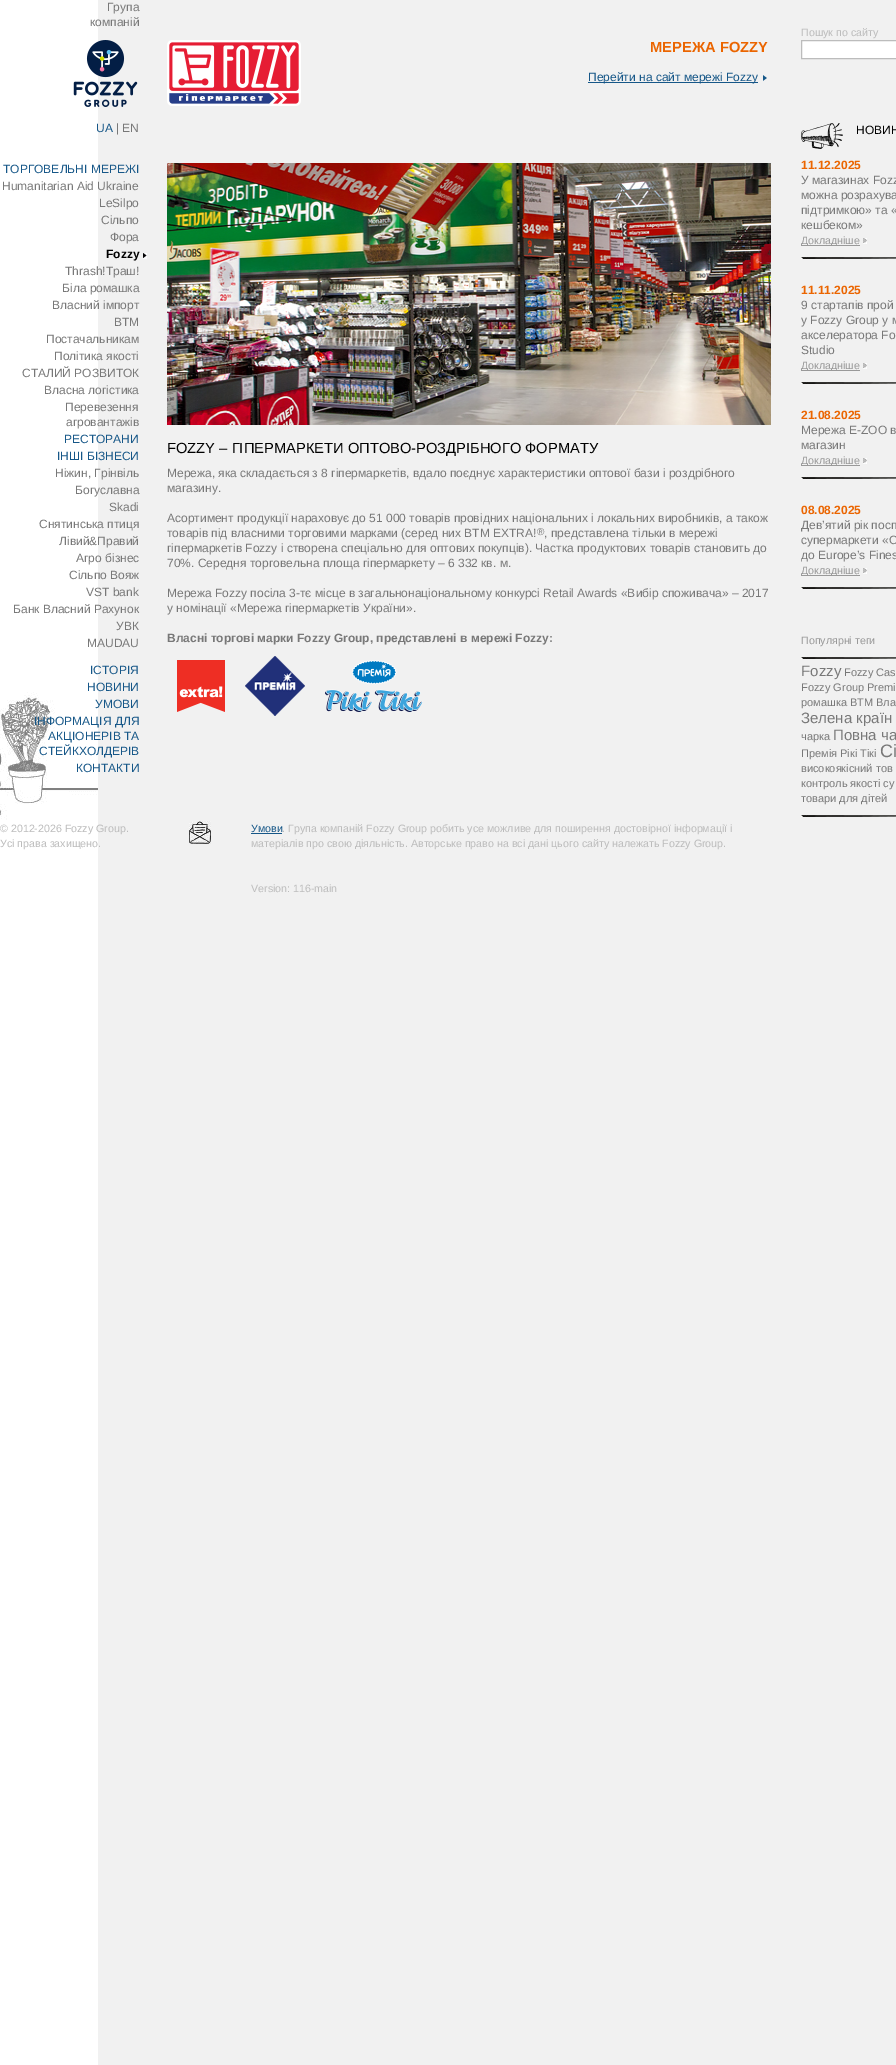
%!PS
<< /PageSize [896 2065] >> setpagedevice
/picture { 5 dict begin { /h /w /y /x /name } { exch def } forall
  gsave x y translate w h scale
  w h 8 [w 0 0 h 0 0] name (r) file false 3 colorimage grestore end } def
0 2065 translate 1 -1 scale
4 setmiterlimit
1 setgray
0 0 896 2065 rectfill
0.945 setgray
98 0 798 2065 rectfill
(img1.rgb) 0 692 98 128 picture
/LiberationSans-Regular [12 0 0 -12 0 0] selectfont
0.471 setgray
107 11 moveto (Група) show
90 26 moveto (компаній) show
(img2.rgb) 73 40 65 67 picture
0.086 0.341 0.533 setrgbcolor
96 132 moveto (UA) show
0.471 setgray
116 132 moveto (| EN) show
0.086 0.341 0.533 setrgbcolor
3 173 moveto (ТОРГОВЕЛЬНІ МЕРЕЖІ) show
0.471 setgray
2 190 moveto (Humanitarian Aid Ukraine) show
99 207 moveto (LeSilpo) show
101 224 moveto (Сільпо) show
110 241 moveto (Фора) show
(img3.rgb) 143 253 4 6 picture
/LiberationSans-Bold [12 0 0 -12 0 0] selectfont
0 setgray
106 258 moveto (Fozzy) show
/LiberationSans-Regular [12 0 0 -12 0 0] selectfont
0.471 setgray
65 275 moveto (Thrash!Траш!) show
62 292 moveto (Біла ромашка) show
52 309 moveto (Власний імпорт) show
114 326 moveto (ВТМ) show
46 343 moveto (Постачальникам) show
54 360 moveto (Політика якості) show
22 377 moveto (СТАЛИЙ РОЗВИТОК) show
44 394 moveto (Власна логістика) show
65 411 moveto (Перевезення) show
66 426 moveto (агровантажів) show
0.086 0.341 0.533 setrgbcolor
64 443 moveto (РЕСТОРАНИ) show
57 460 moveto (ІНШІ БІЗНЕСИ) show
0.471 setgray
55 477 moveto (Ніжин, Грінвіль) show
75 494 moveto (Богуславна) show
109 511 moveto (Skadi) show
39 528 moveto (Снятинська птиця) show
59 545 moveto (Лівий&Правий) show
76 562 moveto (Агро бізнес) show
69 579 moveto (Сільпо Вояж) show
86 596 moveto (VST bank) show
13 613 moveto (Банк Власний Рахунок) show
116 630 moveto (УВК) show
87 647 moveto (MAUDAU) show
0.086 0.341 0.533 setrgbcolor
90 674 moveto (ІСТОРІЯ) show
87 691 moveto (НОВИНИ) show
95 708 moveto (УМОВИ) show
34 725 moveto (ІНФОРМАЦІЯ ДЛЯ) show
48 740 moveto (АКЦІОНЕРІВ ТА) show
39 755 moveto (СТЕЙКХОЛДЕРІВ) show
76 772 moveto (КОНТАКТИ) show
(img4.rgb) 167 40 134 66 picture
/LiberationSans-Bold [14.7 0 0 -14.7 0 0] selectfont
0.922 0.396 0 setrgbcolor
650 52 moveto (МЕРЕЖА FOZZY) show
0.086 0.341 0.533 setrgbcolor
588 82 170 1 rectfill
/LiberationSans-Regular [12 0 0 -12 0 0] selectfont
588 81 moveto (Перейти на сайт мережі Fozzy) show
(img5.rgb) 763 75 4 6 picture
(img6.rgb) 167 163 604 262 picture
/LiberationSans-Regular [14.7 0 0 -14.7 0 0] selectfont
0 setgray
167 453 moveto (FOZZY – ГІПЕРМАРКЕТИ ОПТОВО-РОЗДРІБНОГО ФОРМАТУ) show
/LiberationSans-Regular [12 0 0 -12 0 0] selectfont
0.471 setgray
167 477 moveto (Мережа, яка складається з 8 гіпермаркетів, вдало поєднує характеристики оптової бази і роздрібного) show
167 492 moveto (магазину.) show
167 522 moveto (Асортимент продукції нараховує до 51 000 товарів провідних національних і локальних виробників, а також) show
167 537 moveto (товарів під власними торговими марками \(серед них ВТМ EXTRA!) show
/LiberationSans-Regular [10 0 0 -10 0 0] selectfont
537 535 moveto (®) show
/LiberationSans-Regular [12 0 0 -12 0 0] selectfont
544 537 moveto (, представлена тільки в мережі) show
167 552 moveto (гіпермаркетів Fozzy і створена спеціально для оптових покупців\). Частка продуктових товарів становить до) show
167 567 moveto (70%. Середня торговельна площа гіпермаркету – 6 332 кв. м.) show
167 597 moveto (Мережа Fozzy посіла 3-тє місце в загальнонаціональному конкурсі Retail Awards «Вибір споживача» – 2017) show
167 612 moveto (у номінації «Мережа гіпермаркетів України».) show
/LiberationSans-Bold [12 0 0 -12 0 0] selectfont
167 642 moveto (Власні торгові марки Fozzy Group, представлені в мережі Fozzy:) show
(img7.rgb) 177 660 48 52 picture
(img8.rgb) 245 656 60 60 picture
(img9.rgb) 325 660 98 52 picture
/LiberationSans-Regular [10.65 0 0 -10.65 0 0] selectfont
0.737 setgray
801 36 moveto (Пошук по сайту) show
1 setgray
newpath 801.5 40.5 moveto 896.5 40.5 lineto 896.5 58.5 lineto 801.5 58.5 lineto closepath gsave fill grestore
0.737 setgray
stroke
(img10.rgb) 801 123 42 26 picture
/LiberationSans-Regular [12 0 0 -12 0 0] selectfont
0 setgray
856 134 moveto (НОВИН) show
/LiberationSans-Bold [12 0 0 -12 0 0] selectfont
0.922 0.396 0 setrgbcolor
801 169 moveto (11.12.2025) show
/LiberationSans-Regular [12 0 0 -12 0 0] selectfont
0.471 setgray
801 184 moveto (У магазинах Fozz) show
801 199 moveto (можна розрахува) show
801 214 moveto (підтримкою» та «) show
801 229 moveto (кешбеком») show
0.6 setgray
801 245 59 1 rectfill
/LiberationSans-Regular [10.65 0 0 -10.65 0 0] selectfont
801 244 moveto (Докладніше) show
(img11.rgb) 863 238 4 6 picture
(img12.rgb) 801 257 95 2 picture
/LiberationSans-Bold [12 0 0 -12 0 0] selectfont
0.922 0.396 0 setrgbcolor
801 294 moveto (11.11.2025) show
/LiberationSans-Regular [12 0 0 -12 0 0] selectfont
0.471 setgray
801 309 moveto (9 стартапів прой) show
801 324 moveto (у Fozzy Group у м) show
801 339 moveto (акселератора Fo) show
801 354 moveto (Studio) show
0.6 setgray
801 370 59 1 rectfill
/LiberationSans-Regular [10.65 0 0 -10.65 0 0] selectfont
801 369 moveto (Докладніше) show
(img11.rgb) 863 363 4 6 picture
(img12.rgb) 801 382 95 2 picture
/LiberationSans-Bold [12 0 0 -12 0 0] selectfont
0.922 0.396 0 setrgbcolor
801 419 moveto (21.08.2025) show
/LiberationSans-Regular [12 0 0 -12 0 0] selectfont
0.471 setgray
801 434 moveto (Мережа E-ZOO в) show
801 449 moveto (магазин) show
0.6 setgray
801 465 59 1 rectfill
/LiberationSans-Regular [10.65 0 0 -10.65 0 0] selectfont
801 464 moveto (Докладніше) show
(img11.rgb) 863 458 4 6 picture
(img12.rgb) 801 477 95 2 picture
/LiberationSans-Bold [12 0 0 -12 0 0] selectfont
0.922 0.396 0 setrgbcolor
801 514 moveto (08.08.2025) show
/LiberationSans-Regular [12 0 0 -12 0 0] selectfont
0.471 setgray
801 529 moveto (Дев’ятий рік посп) show
801 544 moveto (супермаркети «С) show
801 559 moveto (до Europe’s Fines) show
0.6 setgray
801 575 59 1 rectfill
/LiberationSans-Regular [10.65 0 0 -10.65 0 0] selectfont
801 574 moveto (Докладніше) show
(img11.rgb) 863 568 4 6 picture
(img12.rgb) 801 587 95 2 picture
801 644 moveto (Популярні теги) show
(img12.rgb) 801 657 95 2 picture
/LiberationSans-Regular [15 0 0 -15 0 0] selectfont
0.471 setgray
801 676 moveto (Fozzy) show
/LiberationSans-Regular [11 0 0 -11 0 0] selectfont
844 676 moveto (Fozzy Cas) show
801 691 moveto (Fozzy Group Premi) show
801 706 moveto (ромашка ВТМ Вла) show
/LiberationSans-Regular [15 0 0 -15 0 0] selectfont
801 723 moveto (Зелена країн) show
/LiberationSans-Regular [11 0 0 -11 0 0] selectfont
801 740 moveto (чарка) show
/LiberationSans-Regular [15 0 0 -15 0 0] selectfont
833 740 moveto (Повна ча) show
/LiberationSans-Regular [11 0 0 -11 0 0] selectfont
801 757 moveto (Премія Рікі Тікі) show
/LiberationSans-Regular [18 0 0 -18 0 0] selectfont
880 757 moveto (Сі) show
/LiberationSans-Regular [11 0 0 -11 0 0] selectfont
801 772 moveto (високоякісний тов) show
801 787 moveto (контроль якості су) show
801 802 moveto (товари для дітей) show
(img12.rgb) 801 815 95 2 picture
/LiberationSans-Regular [10.65 0 0 -10.65 0 0] selectfont
0.737 setgray
0 832 moveto (© 2012-2026 Fozzy Group.) show
0 847 moveto (Усі права захищено.) show
(img13.rgb) 189 821 22 23 picture
0.086 0.341 0.533 setrgbcolor
251 832 moveto (Умови) show
251 833 31 1 rectfill
0.737 setgray
282 832 moveto (. Група компаній Fozzy Group робить усе можливе для поширення достовірної інформації і) show
251 847 moveto (матеріалів про свою діяльність. Авторське право на всі дані цього сайту належать Fozzy Group.) show
251 892 moveto (Version: 116-main) show
showpage
